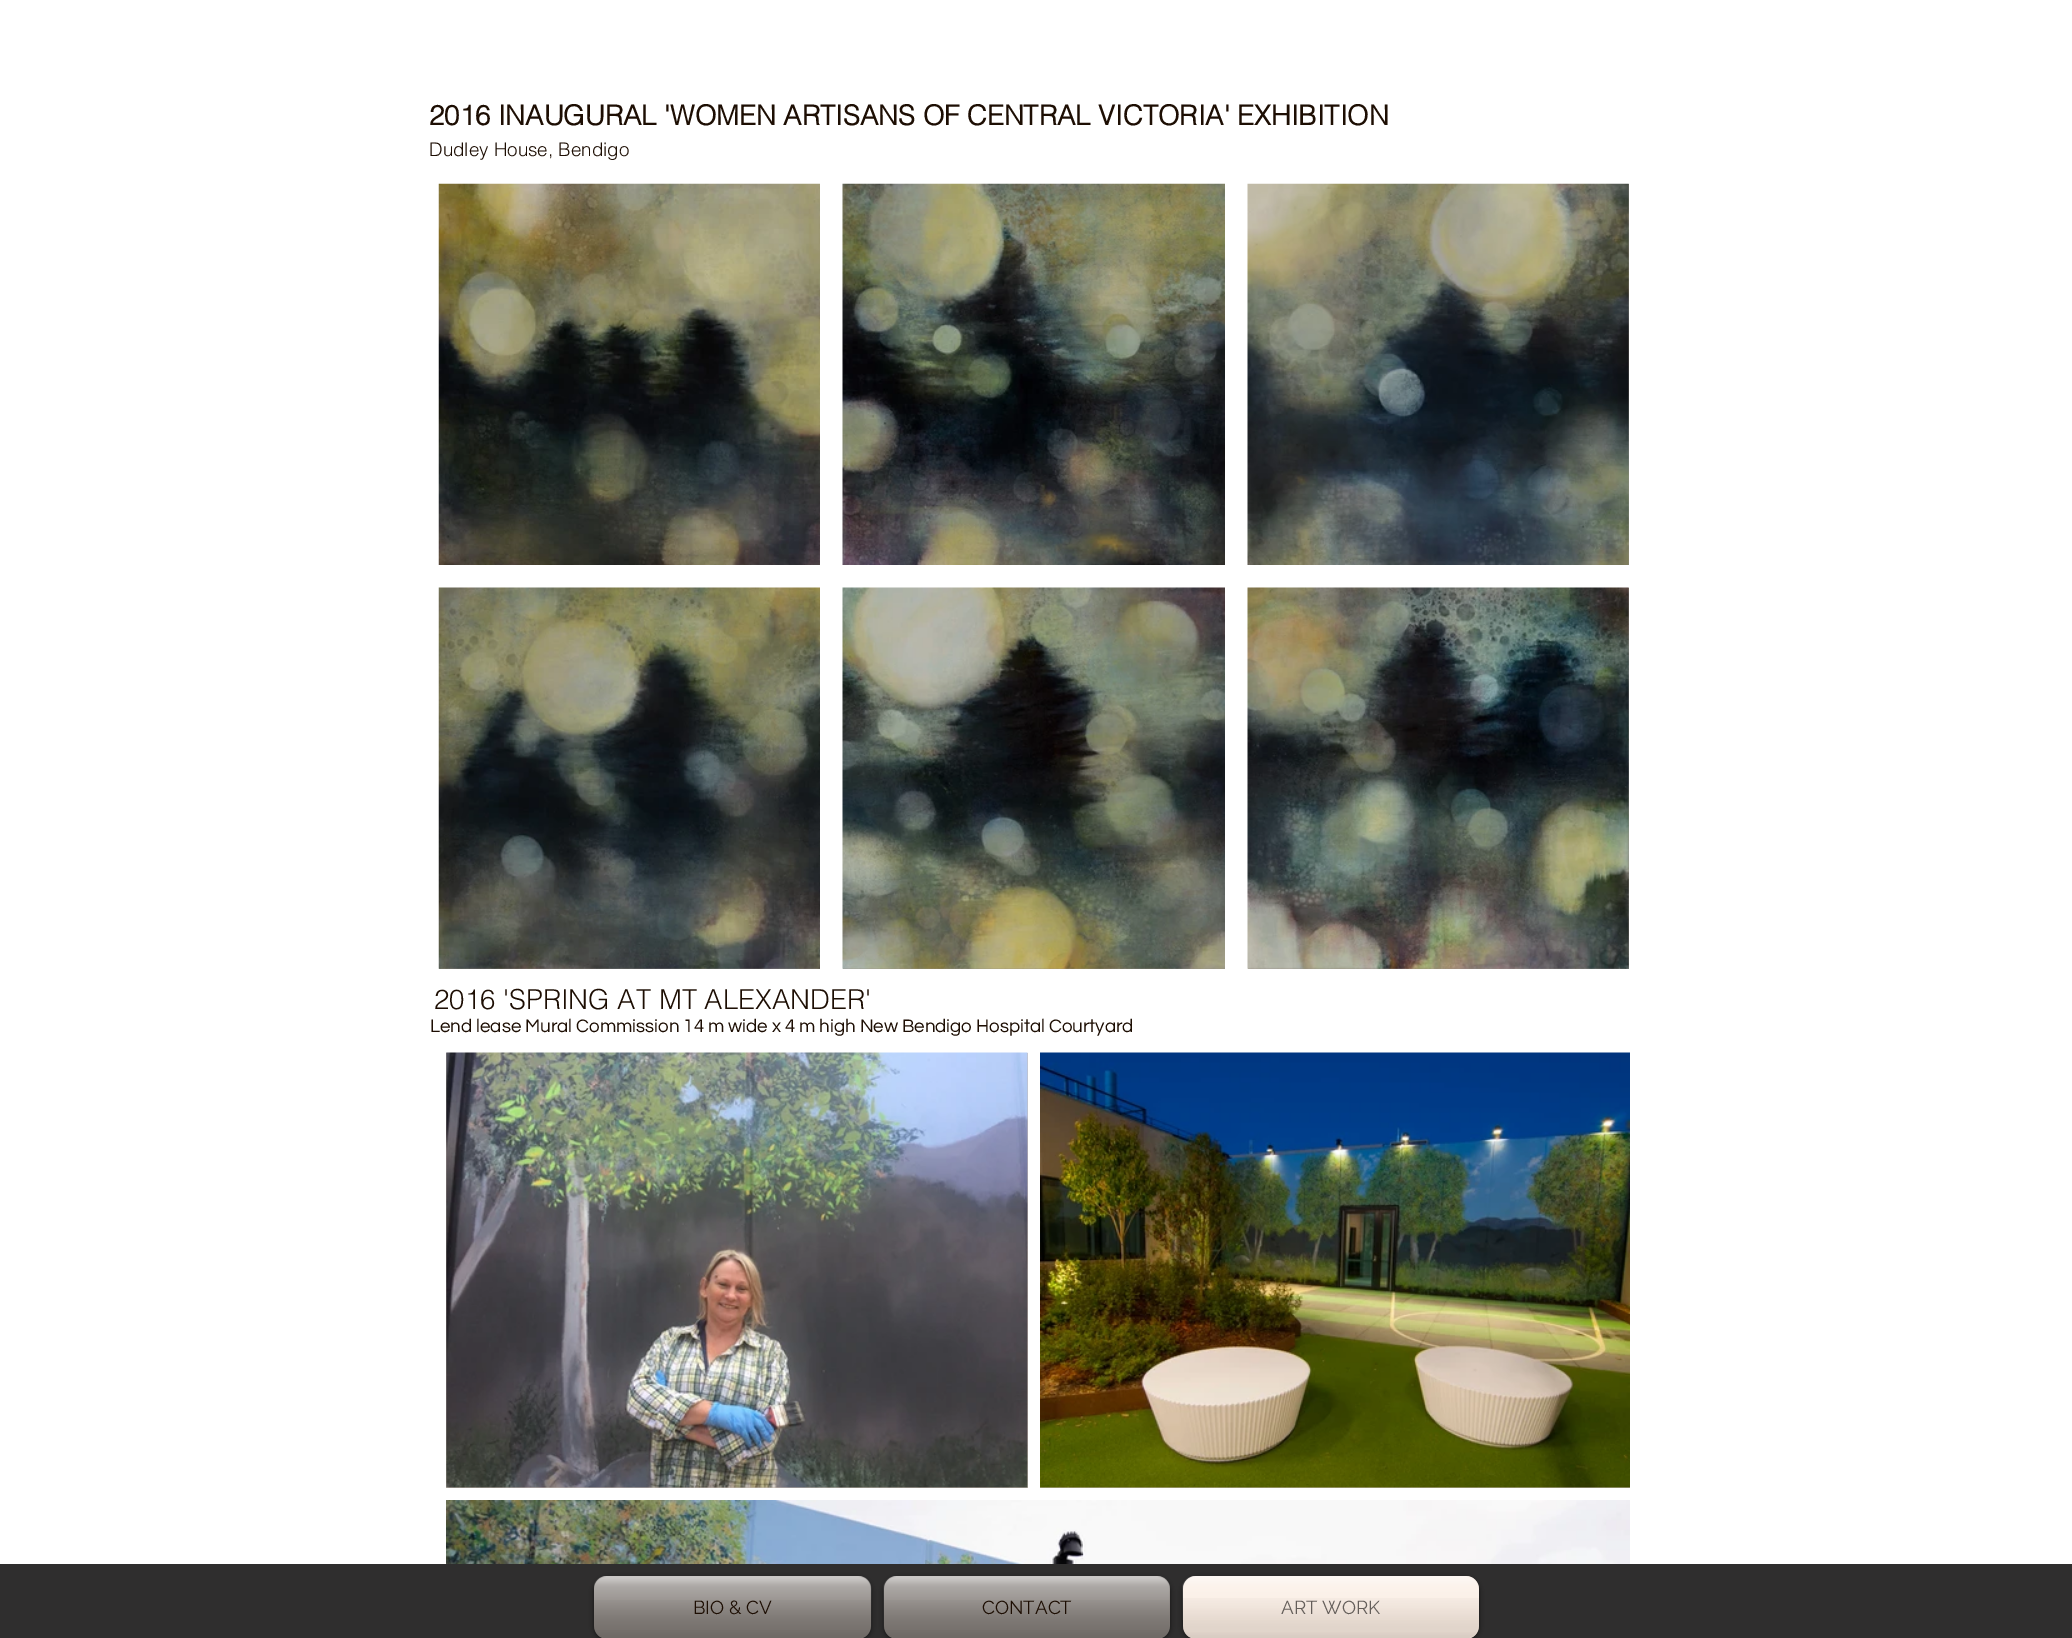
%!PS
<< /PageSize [2072 1638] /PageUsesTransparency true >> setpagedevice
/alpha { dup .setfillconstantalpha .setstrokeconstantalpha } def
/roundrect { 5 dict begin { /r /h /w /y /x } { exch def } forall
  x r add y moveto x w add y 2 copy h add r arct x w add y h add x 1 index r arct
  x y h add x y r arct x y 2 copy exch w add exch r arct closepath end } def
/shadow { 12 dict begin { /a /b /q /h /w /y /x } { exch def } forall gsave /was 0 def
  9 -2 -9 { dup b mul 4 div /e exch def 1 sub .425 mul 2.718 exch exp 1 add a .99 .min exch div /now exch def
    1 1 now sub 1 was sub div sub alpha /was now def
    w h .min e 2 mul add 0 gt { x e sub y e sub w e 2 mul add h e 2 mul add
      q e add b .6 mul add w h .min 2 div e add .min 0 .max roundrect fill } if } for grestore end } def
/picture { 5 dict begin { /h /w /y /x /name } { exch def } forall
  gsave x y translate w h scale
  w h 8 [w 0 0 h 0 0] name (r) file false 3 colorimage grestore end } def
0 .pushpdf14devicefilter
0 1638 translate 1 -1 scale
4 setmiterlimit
1 setgray
0 0 2072 1638 rectfill
/helvetica-Bold [27.5 0 0 -27.5 0 0] selectfont
0.114 0.055 0.012 setrgbcolor
429 125 moveto (2016 INAUGURAL 'WOMEN ARTISANS OF CENTRAL VICTORIA' EXHIBITION) show
/helvetica-Light [18.75 0 0 -18.75 0 0] selectfont
429 156 moveto (Dudley House, Bendigo) show
(img1.rgb) 438 183 382 382 picture
(img2.rgb) 842 183 383 382 picture
(img3.rgb) 1247 183 382 382 picture
(img4.rgb) 438 587 382 382 picture
(img5.rgb) 842 587 383 382 picture
0.588 0.557 0.529 setrgbcolor
1248 588 381 381 rectfill
(img6.rgb) 1247 587 382 382 picture
/helvetica-Light [27.5 0 0 -27.5 0 0] selectfont
0.114 0.055 0.012 setrgbcolor
434 1009 moveto (2016 'SPRING AT MT ALEXANDER') show
/Questrial-Regular [18.75 0 0 -18.75 0 0] selectfont
430 1032 moveto (Lend lease Mural Commission 14 m wide x 4 m high New Bendigo Hospital Courtyard) show
0.784 0.741 0.706 setrgbcolor
446 1053 582 435 rectfill
(img7.rgb) 446 1052 582 436 picture
1040 1487 590 1 rectfill
(img8.rgb) 1040 1052 590 436 picture
(img9.rgb) 446 1500 1184 64 picture
0.184 0.18 0.18 setrgbcolor
0 1564 2072 74 rectfill
gsave
newpath 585 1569 moveto 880 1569 lineto 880 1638 lineto 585 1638 lineto closepath 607 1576 moveto 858 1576 lineto 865 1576 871 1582 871 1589 curveto 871 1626 lineto 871 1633 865 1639 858 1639 curveto 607 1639 lineto 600 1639 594 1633 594 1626 curveto 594 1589 lineto 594 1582 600 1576 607 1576 curveto closepath eoclip newpath
0 setgray
594 1578 277 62 13 2.5 0.6 shadow
grestore
0.4 alpha
0.98 0.925 0.882 setrgbcolor
594 1576 277 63 13 roundrect fill
1 alpha
(img10.rgb) 594 1576 278 54 picture
(img11.rgb) 594 1600 277 38 picture
/Raleway-Regular [18.75 0 0 -18.75 0 0] selectfont
0.114 0.055 0.012 setrgbcolor
693 1614 moveto (BIO & CV) show
gsave
newpath 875 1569 moveto 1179 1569 lineto 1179 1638 lineto 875 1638 lineto closepath 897 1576 moveto 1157 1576 lineto 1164 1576 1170 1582 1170 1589 curveto 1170 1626 lineto 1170 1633 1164 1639 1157 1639 curveto 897 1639 lineto 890 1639 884 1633 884 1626 curveto 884 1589 lineto 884 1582 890 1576 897 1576 curveto closepath eoclip newpath
0 setgray
884 1578 286 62 13 2.5 0.6 shadow
grestore
0.4 alpha
0.98 0.925 0.882 setrgbcolor
884 1576 286 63 13 roundrect fill
1 alpha
(img12.rgb) 883 1576 287 54 picture
(img13.rgb) 884 1600 286 38 picture
0.114 0.055 0.012 setrgbcolor
982 1614 moveto (CONTACT) show
0 setgray
1183 1578 296 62 13 2.5 0.6 shadow
0.98 0.925 0.882 setrgbcolor
1183 1576 296 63 13 roundrect fill
(img14.rgb) 1182 1576 297 44 picture
(img15.rgb) 1183 1598 296 40 picture
0.392 0.369 0.353 setrgbcolor
1281 1614 moveto (ART WORK) show
.poppdf14devicefilter showpage
